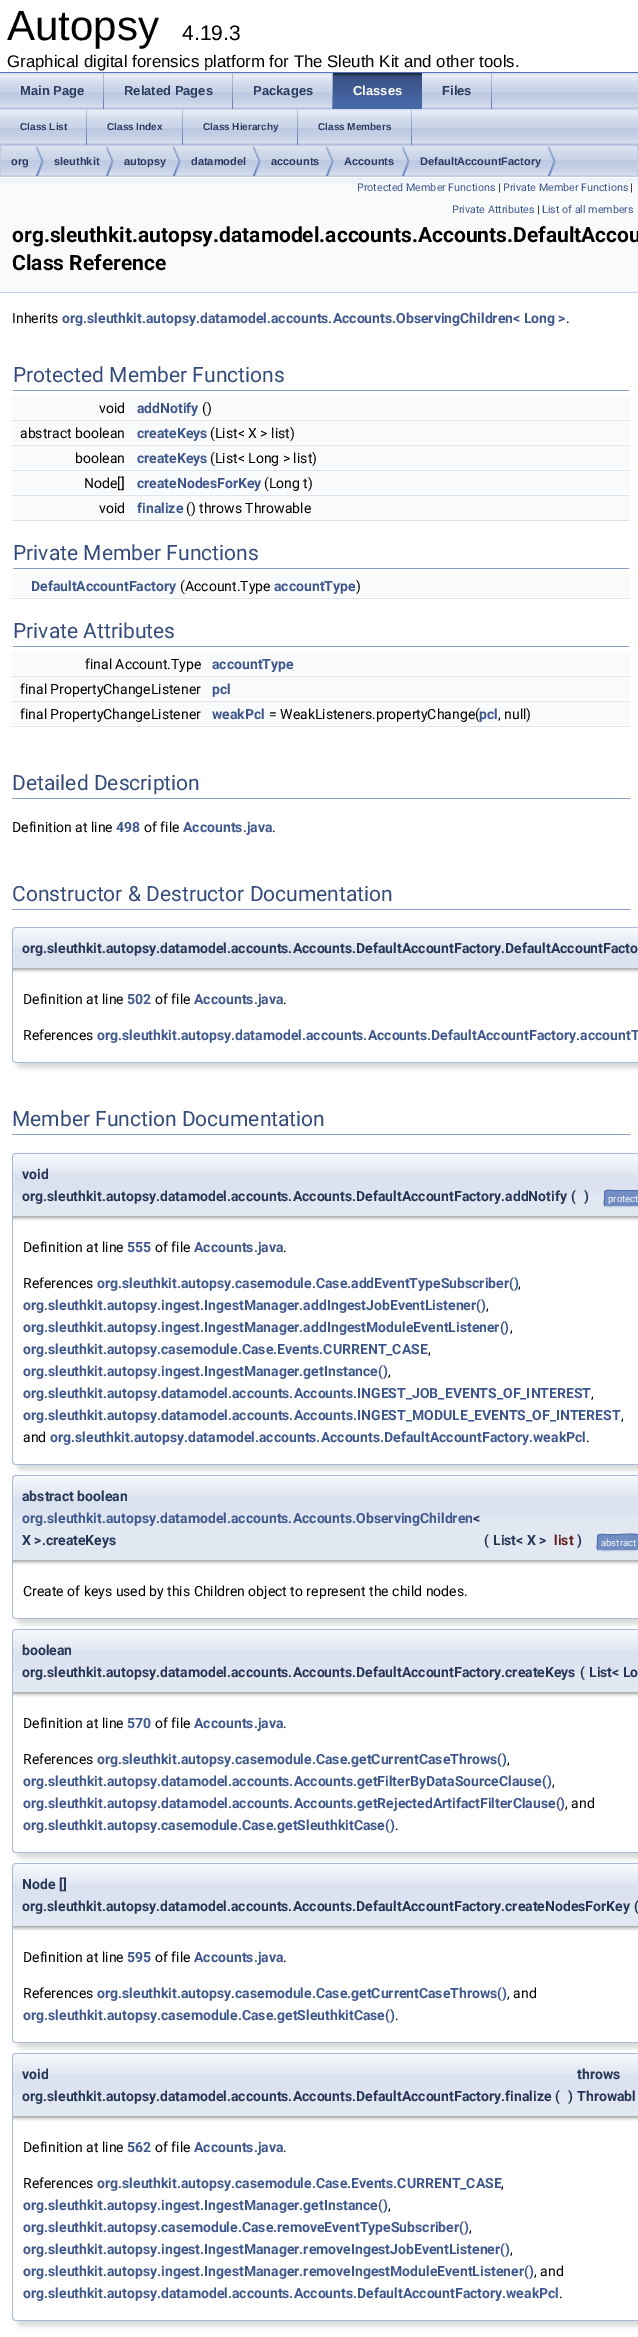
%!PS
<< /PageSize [638 2337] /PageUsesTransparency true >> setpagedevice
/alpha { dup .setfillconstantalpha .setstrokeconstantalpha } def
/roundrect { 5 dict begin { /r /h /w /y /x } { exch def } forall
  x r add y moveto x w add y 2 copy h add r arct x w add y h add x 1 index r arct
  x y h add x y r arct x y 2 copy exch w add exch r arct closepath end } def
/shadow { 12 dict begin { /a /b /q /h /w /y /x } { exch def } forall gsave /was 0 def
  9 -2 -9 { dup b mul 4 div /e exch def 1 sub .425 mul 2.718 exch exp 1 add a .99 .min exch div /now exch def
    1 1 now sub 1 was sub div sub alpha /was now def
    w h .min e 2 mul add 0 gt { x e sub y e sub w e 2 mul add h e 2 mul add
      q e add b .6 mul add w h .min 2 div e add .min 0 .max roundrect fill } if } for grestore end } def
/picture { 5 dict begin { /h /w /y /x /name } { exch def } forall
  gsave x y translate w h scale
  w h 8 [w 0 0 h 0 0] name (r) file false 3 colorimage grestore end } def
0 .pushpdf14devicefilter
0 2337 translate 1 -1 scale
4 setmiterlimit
1 setgray
0 0 638 2337 rectfill
0.325 0.451 0.706 setrgbcolor
0 72 638 1 rectfill
/LiberationSans-Regular [42 0 0 -42 0 0] selectfont
0 setgray
7 40 moveto (Autopsy) show
/LiberationSans-Regular [21 0 0 -21 0 0] selectfont
182 40 moveto (4.19.3) show
/LiberationSans-Regular [16.8 0 0 -16.8 0 0] selectfont
7 67 moveto (Graphical digital forensics platform for The Sleuth Kit and other tools.) show
(img1.rgb) 0 73 638 36 picture
(img2.rgb) 103 73 1 36 picture
/LiberationSans-Bold [13 0 0 -13 0 0] selectfont
0.157 0.227 0.365 setrgbcolor
20 95 moveto (Main Page) show
(img2.rgb) 232 73 1 36 picture
124 95 moveto (Related Pages) show
(img2.rgb) 332 73 1 36 picture
253 95 moveto (Packages) show
(img3.rgb) 333 73 89 36 picture
1 setgray
353 95 moveto (Classes) show
(img2.rgb) 491 73 1 36 picture
0.157 0.227 0.365 setrgbcolor
442 95 moveto (Files) show
(img1.rgb) 0 109 638 36 picture
(img2.rgb) 86 109 1 36 picture
/LiberationSans-Bold [10 0 0 -10 0 0] selectfont
20 130 moveto (Class List) show
(img2.rgb) 182 109 1 36 picture
107 130 moveto (Class Index) show
(img2.rgb) 297 109 1 36 picture
203 130 moveto (Class Hierarchy) show
(img2.rgb) 411 109 1 36 picture
318 130 moveto (Class Members) show
(img4.rgb) 1 146 636 30 picture
0.761 0.804 0.894 setrgbcolor
0.5 145.5 637 31 rectstroke
(img5.rgb) 36 147 8 29 picture
/LiberationSans-Bold [11 0 0 -11 0 0] selectfont
0.157 0.227 0.365 setrgbcolor
11 165 moveto (org) show
(img5.rgb) 106 147 8 29 picture
54 165 moveto (sleuthkit) show
(img5.rgb) 173 147 8 29 picture
124 165 moveto (autopsy) show
(img5.rgb) 253 147 8 29 picture
191 165 moveto (datamodel) show
(img5.rgb) 326 147 8 29 picture
271 165 moveto (accounts) show
(img5.rgb) 402 147 8 29 picture
344 165 moveto (Accounts) show
(img5.rgb) 548 147 8 29 picture
420 165 moveto (DefaultAccountFactory) show
0.976 0.98 0.988 setrgbcolor
0 185 638 107 rectfill
(img6.rgb) 0 177 638 8 picture
0.769 0.812 0.898 setrgbcolor
0 292 638 1 rectfill
/Roboto-Regular [10.7 0 0 -10.7 0 0] selectfont
0.239 0.341 0.549 setrgbcolor
357 191 moveto (Protected Member Functions) show
0 setgray
498 191 moveto (|) show
0.239 0.341 0.549 setrgbcolor
503 191 moveto (Private Member Functions) show
0 setgray
630 191 moveto (|) show
0.239 0.341 0.549 setrgbcolor
452 213 moveto (Private Attributes) show
0 setgray
537 213 moveto (|) show
0.239 0.341 0.549 setrgbcolor
542 213 moveto (List of all members) show
/Roboto-Bold [21 0 0 -21 0 0] selectfont
0 setgray
12 242 moveto (org.sleuthkit.autopsy.datamodel.accounts.Accounts.DefaultAccou) show
12 270 moveto (Class Reference) show
/Roboto-Regular [14 0 0 -14 0 0] selectfont
12 323 moveto (Inherits) show
/Roboto-Bold [14 0 0 -14 0 0] selectfont
0.239 0.341 0.549 setrgbcolor
62 323 moveto (org.sleuthkit.autopsy.datamodel.accounts.Accounts.ObservingChildren< Long >) show
/Roboto-Regular [14 0 0 -14 0 0] selectfont
0 setgray
566 323 moveto (.) show
0.529 0.62 0.796 setrgbcolor
13 390 616 1 rectfill
/Roboto-Regular [21 0 0 -21 0 0] selectfont
0.208 0.298 0.482 setrgbcolor
13 382 moveto (Protected Member Functions) show
0.976 0.98 0.988 setrgbcolor
12 396 618 23 rectfill
/Roboto-Regular [14 0 0 -14 0 0] selectfont
0 setgray
99 413 moveto (void) show
/Roboto-Bold [14 0 0 -14 0 0] selectfont
0.239 0.341 0.549 setrgbcolor
137 413 moveto (addNotify) show
/Roboto-Regular [14 0 0 -14 0 0] selectfont
0 setgray
202 413 moveto (\(\)) show
0.871 0.894 0.941 setrgbcolor
12 420 618 1 rectfill
0.976 0.98 0.988 setrgbcolor
12 421 618 23 rectfill
0 setgray
20 438 moveto (abstract boolean) show
/Roboto-Bold [14 0 0 -14 0 0] selectfont
0.239 0.341 0.549 setrgbcolor
137 438 moveto (createKeys) show
/Roboto-Regular [14 0 0 -14 0 0] selectfont
0 setgray
210 438 moveto (\(List< X > list\)) show
0.871 0.894 0.941 setrgbcolor
12 445 618 1 rectfill
0.976 0.98 0.988 setrgbcolor
12 446 618 23 rectfill
0 setgray
75 463 moveto (boolean) show
/Roboto-Bold [14 0 0 -14 0 0] selectfont
0.239 0.341 0.549 setrgbcolor
137 463 moveto (createKeys) show
/Roboto-Regular [14 0 0 -14 0 0] selectfont
0 setgray
210 463 moveto (\(List< Long > list\)) show
0.871 0.894 0.941 setrgbcolor
12 470 618 1 rectfill
0.976 0.98 0.988 setrgbcolor
12 471 618 23 rectfill
0 setgray
84 488 moveto (Node[]) show
/Roboto-Bold [14 0 0 -14 0 0] selectfont
0.239 0.341 0.549 setrgbcolor
137 488 moveto (createNodesForKey) show
/Roboto-Regular [14 0 0 -14 0 0] selectfont
0 setgray
264 488 moveto (\(Long t\)) show
0.871 0.894 0.941 setrgbcolor
12 495 618 1 rectfill
0.976 0.98 0.988 setrgbcolor
12 496 618 23 rectfill
0 setgray
99 513 moveto (void) show
/Roboto-Bold [14 0 0 -14 0 0] selectfont
0.239 0.341 0.549 setrgbcolor
137 513 moveto (finalize) show
/Roboto-Regular [14 0 0 -14 0 0] selectfont
0 setgray
186 513 moveto (\(\) throws Throwable) show
0.871 0.894 0.941 setrgbcolor
12 520 618 1 rectfill
0.529 0.62 0.796 setrgbcolor
13 568 616 1 rectfill
/Roboto-Regular [21 0 0 -21 0 0] selectfont
0.208 0.298 0.482 setrgbcolor
13 560 moveto (Private Member Functions) show
0.976 0.98 0.988 setrgbcolor
12 574 618 23 rectfill
/Roboto-Bold [14 0 0 -14 0 0] selectfont
0.239 0.341 0.549 setrgbcolor
31 591 moveto (DefaultAccountFactory) show
/Roboto-Regular [14 0 0 -14 0 0] selectfont
0 setgray
180 591 moveto (\(Account.Type) show
/Roboto-Bold [14 0 0 -14 0 0] selectfont
0.239 0.341 0.549 setrgbcolor
274 591 moveto (accountType) show
/Roboto-Regular [14 0 0 -14 0 0] selectfont
0 setgray
356 591 moveto (\)) show
0.871 0.894 0.941 setrgbcolor
12 598 618 1 rectfill
0.529 0.62 0.796 setrgbcolor
13 646 616 1 rectfill
/Roboto-Regular [21 0 0 -21 0 0] selectfont
0.208 0.298 0.482 setrgbcolor
13 638 moveto (Private Attributes) show
0.976 0.98 0.988 setrgbcolor
12 652 618 23 rectfill
/Roboto-Regular [14 0 0 -14 0 0] selectfont
0 setgray
85 669 moveto (final Account.Type) show
/Roboto-Bold [14 0 0 -14 0 0] selectfont
0.239 0.341 0.549 setrgbcolor
212 669 moveto (accountType) show
0.871 0.894 0.941 setrgbcolor
12 676 618 1 rectfill
0.976 0.98 0.988 setrgbcolor
12 677 618 23 rectfill
/Roboto-Regular [14 0 0 -14 0 0] selectfont
0 setgray
20 694 moveto (final PropertyChangeListener) show
/Roboto-Bold [14 0 0 -14 0 0] selectfont
0.239 0.341 0.549 setrgbcolor
212 694 moveto (pcl) show
0.871 0.894 0.941 setrgbcolor
12 701 618 1 rectfill
0.976 0.98 0.988 setrgbcolor
12 702 618 23 rectfill
/Roboto-Regular [14 0 0 -14 0 0] selectfont
0 setgray
20 719 moveto (final PropertyChangeListener) show
/Roboto-Bold [14 0 0 -14 0 0] selectfont
0.239 0.341 0.549 setrgbcolor
212 719 moveto (weakPcl) show
/Roboto-Regular [14 0 0 -14 0 0] selectfont
0 setgray
269 719 moveto (= WeakListeners.propertyChange\() show
/Roboto-Bold [14 0 0 -14 0 0] selectfont
0.239 0.341 0.549 setrgbcolor
479 719 moveto (pcl) show
/Roboto-Regular [14 0 0 -14 0 0] selectfont
0 setgray
498 719 moveto (, null\)) show
0.871 0.894 0.941 setrgbcolor
12 726 618 1 rectfill
0.529 0.62 0.796 setrgbcolor
12 798 618 1 rectfill
/Roboto-Regular [21 0 0 -21 0 0] selectfont
0.208 0.298 0.482 setrgbcolor
12 790 moveto (Detailed Description) show
/Roboto-Regular [14 0 0 -14 0 0] selectfont
0 setgray
12 832 moveto (Definition at line) show
/Roboto-Bold [14 0 0 -14 0 0] selectfont
0.239 0.341 0.549 setrgbcolor
116 832 moveto (498) show
/Roboto-Regular [14 0 0 -14 0 0] selectfont
0 setgray
144 832 moveto (of file) show
/Roboto-Bold [14 0 0 -14 0 0] selectfont
0.239 0.341 0.549 setrgbcolor
183 832 moveto (Accounts.java) show
/Roboto-Regular [14 0 0 -14 0 0] selectfont
0 setgray
272 832 moveto (.) show
0.529 0.62 0.796 setrgbcolor
12 909 618 1 rectfill
/Roboto-Regular [21 0 0 -21 0 0] selectfont
0.208 0.298 0.482 setrgbcolor
12 901 moveto (Constructor & Destructor Documentation) show
(img7.rgb) 12 928 626 40 picture
0.659 0.722 0.851 setrgbcolor
newpath 16 927 moveto 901 927 lineto 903 927 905 929 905 931 curveto 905 968 lineto 12 968 lineto 12 931 lineto 12 929 14 927 16 927 curveto closepath 16 928 moveto 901 928 lineto 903 928 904 929 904 931 curveto 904 968 lineto 13 968 lineto 13 931 lineto 13 929 14 928 16 928 curveto closepath eofill
/Roboto-Bold [14 0 0 -14 0 0] selectfont
0.145 0.208 0.333 setrgbcolor
22 953 moveto (org.sleuthkit.autopsy.datamodel.accounts.Accounts.DefaultAccountFactory.DefaultAccountFacto) show
0 setgray
17 973 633 95 4 2.5 0.15 shadow
1 setgray
newpath 12 968 moveto 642 968 lineto 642 1059 lineto 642 1061 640 1063 638 1063 curveto 16 1063 lineto 14 1063 12 1061 12 1059 curveto closepath fill
(img8.rgb) 13 968 625 5 picture
0.659 0.722 0.851 setrgbcolor
newpath 12 968 moveto 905 968 lineto 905 1059 lineto 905 1061 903 1063 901 1063 curveto 16 1063 lineto 14 1063 12 1061 12 1059 curveto closepath 13 968 moveto 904 968 lineto 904 1059 lineto 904 1061 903 1062 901 1062 curveto 16 1062 lineto 14 1062 13 1061 13 1059 curveto closepath eofill
/Roboto-Regular [14 0 0 -14 0 0] selectfont
0 setgray
23 1004 moveto (Definition at line) show
/Roboto-Bold [14 0 0 -14 0 0] selectfont
0.239 0.341 0.549 setrgbcolor
127 1004 moveto (502) show
/Roboto-Regular [14 0 0 -14 0 0] selectfont
0 setgray
155 1004 moveto (of file) show
/Roboto-Bold [14 0 0 -14 0 0] selectfont
0.239 0.341 0.549 setrgbcolor
194 1004 moveto (Accounts.java) show
/Roboto-Regular [14 0 0 -14 0 0] selectfont
0 setgray
283 1004 moveto (.) show
23 1040 moveto (References) show
/Roboto-Bold [14 0 0 -14 0 0] selectfont
0.239 0.341 0.549 setrgbcolor
97 1040 moveto (org.sleuthkit.autopsy.datamodel.accounts.Accounts.DefaultAccountFactory.accountT) show
0.529 0.62 0.796 setrgbcolor
12 1134 618 1 rectfill
/Roboto-Regular [21 0 0 -21 0 0] selectfont
0.208 0.298 0.482 setrgbcolor
12 1126 moveto (Member Function Documentation) show
0.886 0.91 0.949 setrgbcolor
newpath 16 1153 moveto 638 1153 lineto 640 1153 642 1155 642 1157 curveto 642 1216 lineto 12 1216 lineto 12 1157 lineto 12 1155 14 1153 16 1153 curveto closepath fill
(img9.rgb) 12 1154 626 41 picture
0.659 0.722 0.851 setrgbcolor
newpath 16 1153 moveto 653 1153 lineto 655 1153 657 1155 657 1157 curveto 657 1216 lineto 12 1216 lineto 12 1157 lineto 12 1155 14 1153 16 1153 curveto closepath 16 1154 moveto 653 1154 lineto 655 1154 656 1155 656 1157 curveto 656 1216 lineto 13 1216 lineto 13 1157 lineto 13 1155 14 1154 16 1154 curveto closepath eofill
/Roboto-Bold [14 0 0 -14 0 0] selectfont
0.145 0.208 0.333 setrgbcolor
22 1179 moveto (void) show
22 1201 moveto (org.sleuthkit.autopsy.datamodel.accounts.Accounts.DefaultAccountFactory.addNotify) show
571 1201 moveto (\() show
584 1201 moveto (\)) show
0.447 0.553 0.757 setrgbcolor
604 1190 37 17 3 roundrect fill
0.769 0.812 0.898 setrgbcolor
newpath 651 1191 moveto 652.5 1193 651.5 1196.5 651.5 1198.5 curveto 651.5 1208 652 1206.5 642 1206.5 curveto 614 1206.5 lineto 614 1206.5 607 1207.5 605 1206 curveto stroke
0.325 0.451 0.706 setrgbcolor
newpath 605 1206 moveto 603.5 1204 604.5 1200.5 604.5 1198.5 curveto 604.5 1189 604 1190.5 614 1190.5 curveto 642 1190.5 lineto 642 1190.5 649 1189.5 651 1191 curveto stroke
/Roboto-Regular [9.5 0 0 -9.5 0 0] selectfont
1 setgray
608 1202 moveto (protect) show
0 setgray
17 1221 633 249 4 2.5 0.15 shadow
1 setgray
newpath 12 1216 moveto 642 1216 lineto 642 1461 lineto 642 1463 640 1465 638 1465 curveto 16 1465 lineto 14 1465 12 1463 12 1461 curveto closepath fill
(img8.rgb) 13 1216 625 5 picture
0.659 0.722 0.851 setrgbcolor
newpath 12 1216 moveto 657 1216 lineto 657 1461 lineto 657 1463 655 1465 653 1465 curveto 16 1465 lineto 14 1465 12 1463 12 1461 curveto closepath 13 1216 moveto 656 1216 lineto 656 1461 lineto 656 1463 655 1464 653 1464 curveto 16 1464 lineto 14 1464 13 1463 13 1461 curveto closepath eofill
/Roboto-Regular [14 0 0 -14 0 0] selectfont
0 setgray
23 1252 moveto (Definition at line) show
/Roboto-Bold [14 0 0 -14 0 0] selectfont
0.239 0.341 0.549 setrgbcolor
127 1252 moveto (555) show
/Roboto-Regular [14 0 0 -14 0 0] selectfont
0 setgray
155 1252 moveto (of file) show
/Roboto-Bold [14 0 0 -14 0 0] selectfont
0.239 0.341 0.549 setrgbcolor
194 1252 moveto (Accounts.java) show
/Roboto-Regular [14 0 0 -14 0 0] selectfont
0 setgray
283 1252 moveto (.) show
23 1288 moveto (References) show
/Roboto-Bold [14 0 0 -14 0 0] selectfont
0.239 0.341 0.549 setrgbcolor
97 1288 moveto (org.sleuthkit.autopsy.casemodule.Case.addEventTypeSubscriber\(\)) show
/Roboto-Regular [14 0 0 -14 0 0] selectfont
0 setgray
518 1288 moveto (,) show
/Roboto-Bold [14 0 0 -14 0 0] selectfont
0.239 0.341 0.549 setrgbcolor
23 1310 moveto (org.sleuthkit.autopsy.ingest.IngestManager.addIngestJobEventListener\(\)) show
/Roboto-Regular [14 0 0 -14 0 0] selectfont
0 setgray
486 1310 moveto (,) show
/Roboto-Bold [14 0 0 -14 0 0] selectfont
0.239 0.341 0.549 setrgbcolor
23 1332 moveto (org.sleuthkit.autopsy.ingest.IngestManager.addIngestModuleEventListener\(\)) show
/Roboto-Regular [14 0 0 -14 0 0] selectfont
0 setgray
510 1332 moveto (,) show
/Roboto-Bold [14 0 0 -14 0 0] selectfont
0.239 0.341 0.549 setrgbcolor
23 1354 moveto (org.sleuthkit.autopsy.casemodule.Case.Events.CURRENT_CASE) show
/Roboto-Regular [14 0 0 -14 0 0] selectfont
0 setgray
428 1354 moveto (,) show
/Roboto-Bold [14 0 0 -14 0 0] selectfont
0.239 0.341 0.549 setrgbcolor
23 1376 moveto (org.sleuthkit.autopsy.ingest.IngestManager.getInstance\(\)) show
/Roboto-Regular [14 0 0 -14 0 0] selectfont
0 setgray
388 1376 moveto (,) show
/Roboto-Bold [14 0 0 -14 0 0] selectfont
0.239 0.341 0.549 setrgbcolor
23 1398 moveto (org.sleuthkit.autopsy.datamodel.accounts.Accounts.INGEST_JOB_EVENTS_OF_INTEREST) show
/Roboto-Regular [14 0 0 -14 0 0] selectfont
0 setgray
591 1398 moveto (,) show
/Roboto-Bold [14 0 0 -14 0 0] selectfont
0.239 0.341 0.549 setrgbcolor
23 1420 moveto (org.sleuthkit.autopsy.datamodel.accounts.Accounts.INGEST_MODULE_EVENTS_OF_INTEREST) show
/Roboto-Regular [14 0 0 -14 0 0] selectfont
0 setgray
621 1420 moveto (,) show
23 1442 moveto (and) show
/Roboto-Bold [14 0 0 -14 0 0] selectfont
0.239 0.341 0.549 setrgbcolor
50 1442 moveto (org.sleuthkit.autopsy.datamodel.accounts.Accounts.DefaultAccountFactory.weakPcl) show
/Roboto-Regular [14 0 0 -14 0 0] selectfont
0 setgray
586 1442 moveto (.) show
0.886 0.91 0.949 setrgbcolor
newpath 16 1475 moveto 638 1475 lineto 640 1475 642 1477 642 1479 curveto 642 1560 lineto 12 1560 lineto 12 1479 lineto 12 1477 14 1475 16 1475 curveto closepath fill
(img9.rgb) 12 1476 626 41 picture
0.659 0.722 0.851 setrgbcolor
newpath 16 1475 moveto 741 1475 lineto 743 1475 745 1477 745 1479 curveto 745 1560 lineto 12 1560 lineto 12 1479 lineto 12 1477 14 1475 16 1475 curveto closepath 16 1476 moveto 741 1476 lineto 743 1476 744 1477 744 1479 curveto 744 1560 lineto 13 1560 lineto 13 1479 lineto 13 1477 14 1476 16 1476 curveto closepath eofill
/Roboto-Bold [14 0 0 -14 0 0] selectfont
0.145 0.208 0.333 setrgbcolor
22 1501 moveto (abstract boolean) show
0.239 0.341 0.549 setrgbcolor
22 1523 moveto (org.sleuthkit.autopsy.datamodel.accounts.Accounts.ObservingChildren) show
0.145 0.208 0.333 setrgbcolor
473 1523 moveto (<) show
22 1545 moveto (X >.createKeys) show
484 1545 moveto (\() show
493 1545 moveto (List< X >) show
0.376 0.125 0.125 setrgbcolor
554 1545 moveto (list) show
0.145 0.208 0.333 setrgbcolor
577 1545 moveto (\)) show
0.447 0.553 0.757 setrgbcolor
597 1534 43 17 3 roundrect fill
0.769 0.812 0.898 setrgbcolor
newpath 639 1535 moveto 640.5 1537 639.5 1540.5 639.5 1542.5 curveto 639.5 1551.5 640 1550.5 631 1550.5 curveto 618.5 1550.5 lineto 615.5 1550.5 600 1551.5 598 1550 curveto stroke
0.325 0.451 0.706 setrgbcolor
newpath 598 1550 moveto 596.5 1548 597.5 1544.5 597.5 1542.5 curveto 597.5 1533.5 597 1534.5 606 1534.5 curveto 618.5 1534.5 lineto 621.5 1534.5 637 1533.5 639 1535 curveto stroke
/Roboto-Regular [9.5 0 0 -9.5 0 0] selectfont
1 setgray
601 1546 moveto (abstract) show
0 setgray
17 1565 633 59 4 2.5 0.15 shadow
1 setgray
newpath 12 1560 moveto 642 1560 lineto 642 1615 lineto 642 1617 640 1619 638 1619 curveto 16 1619 lineto 14 1619 12 1617 12 1615 curveto closepath fill
(img8.rgb) 13 1560 625 5 picture
0.659 0.722 0.851 setrgbcolor
newpath 12 1560 moveto 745 1560 lineto 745 1615 lineto 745 1617 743 1619 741 1619 curveto 16 1619 lineto 14 1619 12 1617 12 1615 curveto closepath 13 1560 moveto 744 1560 lineto 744 1615 lineto 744 1617 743 1618 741 1618 curveto 16 1618 lineto 14 1618 13 1617 13 1615 curveto closepath eofill
/Roboto-Regular [14 0 0 -14 0 0] selectfont
0 setgray
23 1596 moveto (Create of keys used by this Children object to represent the child nodes.) show
0.886 0.91 0.949 setrgbcolor
newpath 16 1629 moveto 638 1629 lineto 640 1629 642 1631 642 1633 curveto 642 1692 lineto 12 1692 lineto 12 1633 lineto 12 1631 14 1629 16 1629 curveto closepath fill
(img9.rgb) 12 1630 626 41 picture
0.659 0.722 0.851 setrgbcolor
newpath 16 1629 moveto 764 1629 lineto 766 1629 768 1631 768 1633 curveto 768 1692 lineto 12 1692 lineto 12 1633 lineto 12 1631 14 1629 16 1629 curveto closepath 16 1630 moveto 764 1630 lineto 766 1630 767 1631 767 1633 curveto 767 1692 lineto 13 1692 lineto 13 1633 lineto 13 1631 14 1630 16 1630 curveto closepath eofill
/Roboto-Bold [14 0 0 -14 0 0] selectfont
0.145 0.208 0.333 setrgbcolor
22 1655 moveto (boolean) show
22 1677 moveto (org.sleuthkit.autopsy.datamodel.accounts.Accounts.DefaultAccountFactory.createKeys) show
580 1677 moveto (\() show
589 1677 moveto (List< Lo) show
0 setgray
17 1697 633 161 4 2.5 0.15 shadow
1 setgray
newpath 12 1692 moveto 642 1692 lineto 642 1849 lineto 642 1851 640 1853 638 1853 curveto 16 1853 lineto 14 1853 12 1851 12 1849 curveto closepath fill
(img8.rgb) 13 1692 625 5 picture
0.659 0.722 0.851 setrgbcolor
newpath 12 1692 moveto 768 1692 lineto 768 1849 lineto 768 1851 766 1853 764 1853 curveto 16 1853 lineto 14 1853 12 1851 12 1849 curveto closepath 13 1692 moveto 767 1692 lineto 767 1849 lineto 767 1851 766 1852 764 1852 curveto 16 1852 lineto 14 1852 13 1851 13 1849 curveto closepath eofill
/Roboto-Regular [14 0 0 -14 0 0] selectfont
0 setgray
23 1728 moveto (Definition at line) show
/Roboto-Bold [14 0 0 -14 0 0] selectfont
0.239 0.341 0.549 setrgbcolor
127 1728 moveto (570) show
/Roboto-Regular [14 0 0 -14 0 0] selectfont
0 setgray
155 1728 moveto (of file) show
/Roboto-Bold [14 0 0 -14 0 0] selectfont
0.239 0.341 0.549 setrgbcolor
194 1728 moveto (Accounts.java) show
/Roboto-Regular [14 0 0 -14 0 0] selectfont
0 setgray
283 1728 moveto (.) show
23 1764 moveto (References) show
/Roboto-Bold [14 0 0 -14 0 0] selectfont
0.239 0.341 0.549 setrgbcolor
97 1764 moveto (org.sleuthkit.autopsy.casemodule.Case.getCurrentCaseThrows\(\)) show
/Roboto-Regular [14 0 0 -14 0 0] selectfont
0 setgray
507 1764 moveto (,) show
/Roboto-Bold [14 0 0 -14 0 0] selectfont
0.239 0.341 0.549 setrgbcolor
23 1786 moveto (org.sleuthkit.autopsy.datamodel.accounts.Accounts.getFilterByDataSourceClause\(\)) show
/Roboto-Regular [14 0 0 -14 0 0] selectfont
0 setgray
552 1786 moveto (,) show
/Roboto-Bold [14 0 0 -14 0 0] selectfont
0.239 0.341 0.549 setrgbcolor
23 1808 moveto (org.sleuthkit.autopsy.datamodel.accounts.Accounts.getRejectedArtifactFilterClause\(\)) show
/Roboto-Regular [14 0 0 -14 0 0] selectfont
0 setgray
565 1808 moveto (, and) show
/Roboto-Bold [14 0 0 -14 0 0] selectfont
0.239 0.341 0.549 setrgbcolor
23 1830 moveto (org.sleuthkit.autopsy.casemodule.Case.getSleuthkitCase\(\)) show
/Roboto-Regular [14 0 0 -14 0 0] selectfont
0 setgray
395 1830 moveto (.) show
0.886 0.91 0.949 setrgbcolor
newpath 16 1863 moveto 638 1863 lineto 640 1863 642 1865 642 1867 curveto 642 1926 lineto 12 1926 lineto 12 1867 lineto 12 1865 14 1863 16 1863 curveto closepath fill
(img9.rgb) 12 1864 626 41 picture
0.659 0.722 0.851 setrgbcolor
newpath 16 1863 moveto 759 1863 lineto 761 1863 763 1865 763 1867 curveto 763 1926 lineto 12 1926 lineto 12 1867 lineto 12 1865 14 1863 16 1863 curveto closepath 16 1864 moveto 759 1864 lineto 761 1864 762 1865 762 1867 curveto 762 1926 lineto 13 1926 lineto 13 1867 lineto 13 1865 14 1864 16 1864 curveto closepath eofill
/Roboto-Bold [14 0 0 -14 0 0] selectfont
0.145 0.208 0.333 setrgbcolor
22 1889 moveto (Node []) show
22 1911 moveto (org.sleuthkit.autopsy.datamodel.accounts.Accounts.DefaultAccountFactory.createNodesForKey) show
634 1911 moveto (\() show
0 setgray
17 1931 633 117 4 2.5 0.15 shadow
1 setgray
newpath 12 1926 moveto 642 1926 lineto 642 2039 lineto 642 2041 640 2043 638 2043 curveto 16 2043 lineto 14 2043 12 2041 12 2039 curveto closepath fill
(img8.rgb) 13 1926 625 5 picture
0.659 0.722 0.851 setrgbcolor
newpath 12 1926 moveto 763 1926 lineto 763 2039 lineto 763 2041 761 2043 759 2043 curveto 16 2043 lineto 14 2043 12 2041 12 2039 curveto closepath 13 1926 moveto 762 1926 lineto 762 2039 lineto 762 2041 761 2042 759 2042 curveto 16 2042 lineto 14 2042 13 2041 13 2039 curveto closepath eofill
/Roboto-Regular [14 0 0 -14 0 0] selectfont
0 setgray
23 1962 moveto (Definition at line) show
/Roboto-Bold [14 0 0 -14 0 0] selectfont
0.239 0.341 0.549 setrgbcolor
127 1962 moveto (595) show
/Roboto-Regular [14 0 0 -14 0 0] selectfont
0 setgray
155 1962 moveto (of file) show
/Roboto-Bold [14 0 0 -14 0 0] selectfont
0.239 0.341 0.549 setrgbcolor
194 1962 moveto (Accounts.java) show
/Roboto-Regular [14 0 0 -14 0 0] selectfont
0 setgray
283 1962 moveto (.) show
23 1998 moveto (References) show
/Roboto-Bold [14 0 0 -14 0 0] selectfont
0.239 0.341 0.549 setrgbcolor
97 1998 moveto (org.sleuthkit.autopsy.casemodule.Case.getCurrentCaseThrows\(\)) show
/Roboto-Regular [14 0 0 -14 0 0] selectfont
0 setgray
507 1998 moveto (, and) show
/Roboto-Bold [14 0 0 -14 0 0] selectfont
0.239 0.341 0.549 setrgbcolor
23 2020 moveto (org.sleuthkit.autopsy.casemodule.Case.getSleuthkitCase\(\)) show
/Roboto-Regular [14 0 0 -14 0 0] selectfont
0 setgray
395 2020 moveto (.) show
0.886 0.91 0.949 setrgbcolor
newpath 16 2053 moveto 638 2053 lineto 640 2053 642 2055 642 2057 curveto 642 2116 lineto 12 2116 lineto 12 2057 lineto 12 2055 14 2053 16 2053 curveto closepath fill
(img9.rgb) 12 2054 626 41 picture
0.659 0.722 0.851 setrgbcolor
newpath 16 2053 moveto 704 2053 lineto 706 2053 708 2055 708 2057 curveto 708 2116 lineto 12 2116 lineto 12 2057 lineto 12 2055 14 2053 16 2053 curveto closepath 16 2054 moveto 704 2054 lineto 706 2054 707 2055 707 2057 curveto 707 2116 lineto 13 2116 lineto 13 2057 lineto 13 2055 14 2054 16 2054 curveto closepath eofill
/Roboto-Bold [14 0 0 -14 0 0] selectfont
0.145 0.208 0.333 setrgbcolor
22 2079 moveto (void) show
22 2101 moveto (org.sleuthkit.autopsy.datamodel.accounts.Accounts.DefaultAccountFactory.finalize) show
555 2101 moveto (\() show
568 2101 moveto (\)) show
577 2079 moveto (throws) show
577 2101 moveto (Throwabl) show
0 setgray
17 2121 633 205 4 2.5 0.15 shadow
1 setgray
newpath 12 2116 moveto 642 2116 lineto 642 2317 lineto 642 2319 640 2321 638 2321 curveto 16 2321 lineto 14 2321 12 2319 12 2317 curveto closepath fill
(img8.rgb) 13 2116 625 5 picture
0.659 0.722 0.851 setrgbcolor
newpath 12 2116 moveto 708 2116 lineto 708 2317 lineto 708 2319 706 2321 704 2321 curveto 16 2321 lineto 14 2321 12 2319 12 2317 curveto closepath 13 2116 moveto 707 2116 lineto 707 2317 lineto 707 2319 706 2320 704 2320 curveto 16 2320 lineto 14 2320 13 2319 13 2317 curveto closepath eofill
/Roboto-Regular [14 0 0 -14 0 0] selectfont
0 setgray
23 2152 moveto (Definition at line) show
/Roboto-Bold [14 0 0 -14 0 0] selectfont
0.239 0.341 0.549 setrgbcolor
127 2152 moveto (562) show
/Roboto-Regular [14 0 0 -14 0 0] selectfont
0 setgray
155 2152 moveto (of file) show
/Roboto-Bold [14 0 0 -14 0 0] selectfont
0.239 0.341 0.549 setrgbcolor
194 2152 moveto (Accounts.java) show
/Roboto-Regular [14 0 0 -14 0 0] selectfont
0 setgray
283 2152 moveto (.) show
23 2188 moveto (References) show
/Roboto-Bold [14 0 0 -14 0 0] selectfont
0.239 0.341 0.549 setrgbcolor
97 2188 moveto (org.sleuthkit.autopsy.casemodule.Case.Events.CURRENT_CASE) show
/Roboto-Regular [14 0 0 -14 0 0] selectfont
0 setgray
501 2188 moveto (,) show
/Roboto-Bold [14 0 0 -14 0 0] selectfont
0.239 0.341 0.549 setrgbcolor
23 2210 moveto (org.sleuthkit.autopsy.ingest.IngestManager.getInstance\(\)) show
/Roboto-Regular [14 0 0 -14 0 0] selectfont
0 setgray
388 2210 moveto (,) show
/Roboto-Bold [14 0 0 -14 0 0] selectfont
0.239 0.341 0.549 setrgbcolor
23 2232 moveto (org.sleuthkit.autopsy.casemodule.Case.removeEventTypeSubscriber\(\)) show
/Roboto-Regular [14 0 0 -14 0 0] selectfont
0 setgray
469 2232 moveto (,) show
/Roboto-Bold [14 0 0 -14 0 0] selectfont
0.239 0.341 0.549 setrgbcolor
23 2254 moveto (org.sleuthkit.autopsy.ingest.IngestManager.removeIngestJobEventListener\(\)) show
/Roboto-Regular [14 0 0 -14 0 0] selectfont
0 setgray
510 2254 moveto (,) show
/Roboto-Bold [14 0 0 -14 0 0] selectfont
0.239 0.341 0.549 setrgbcolor
23 2276 moveto (org.sleuthkit.autopsy.ingest.IngestManager.removeIngestModuleEventListener\(\)) show
/Roboto-Regular [14 0 0 -14 0 0] selectfont
0 setgray
534 2276 moveto (, and) show
/Roboto-Bold [14 0 0 -14 0 0] selectfont
0.239 0.341 0.549 setrgbcolor
23 2298 moveto (org.sleuthkit.autopsy.datamodel.accounts.Accounts.DefaultAccountFactory.weakPcl) show
/Roboto-Regular [14 0 0 -14 0 0] selectfont
0 setgray
559 2298 moveto (.) show
.poppdf14devicefilter showpage
